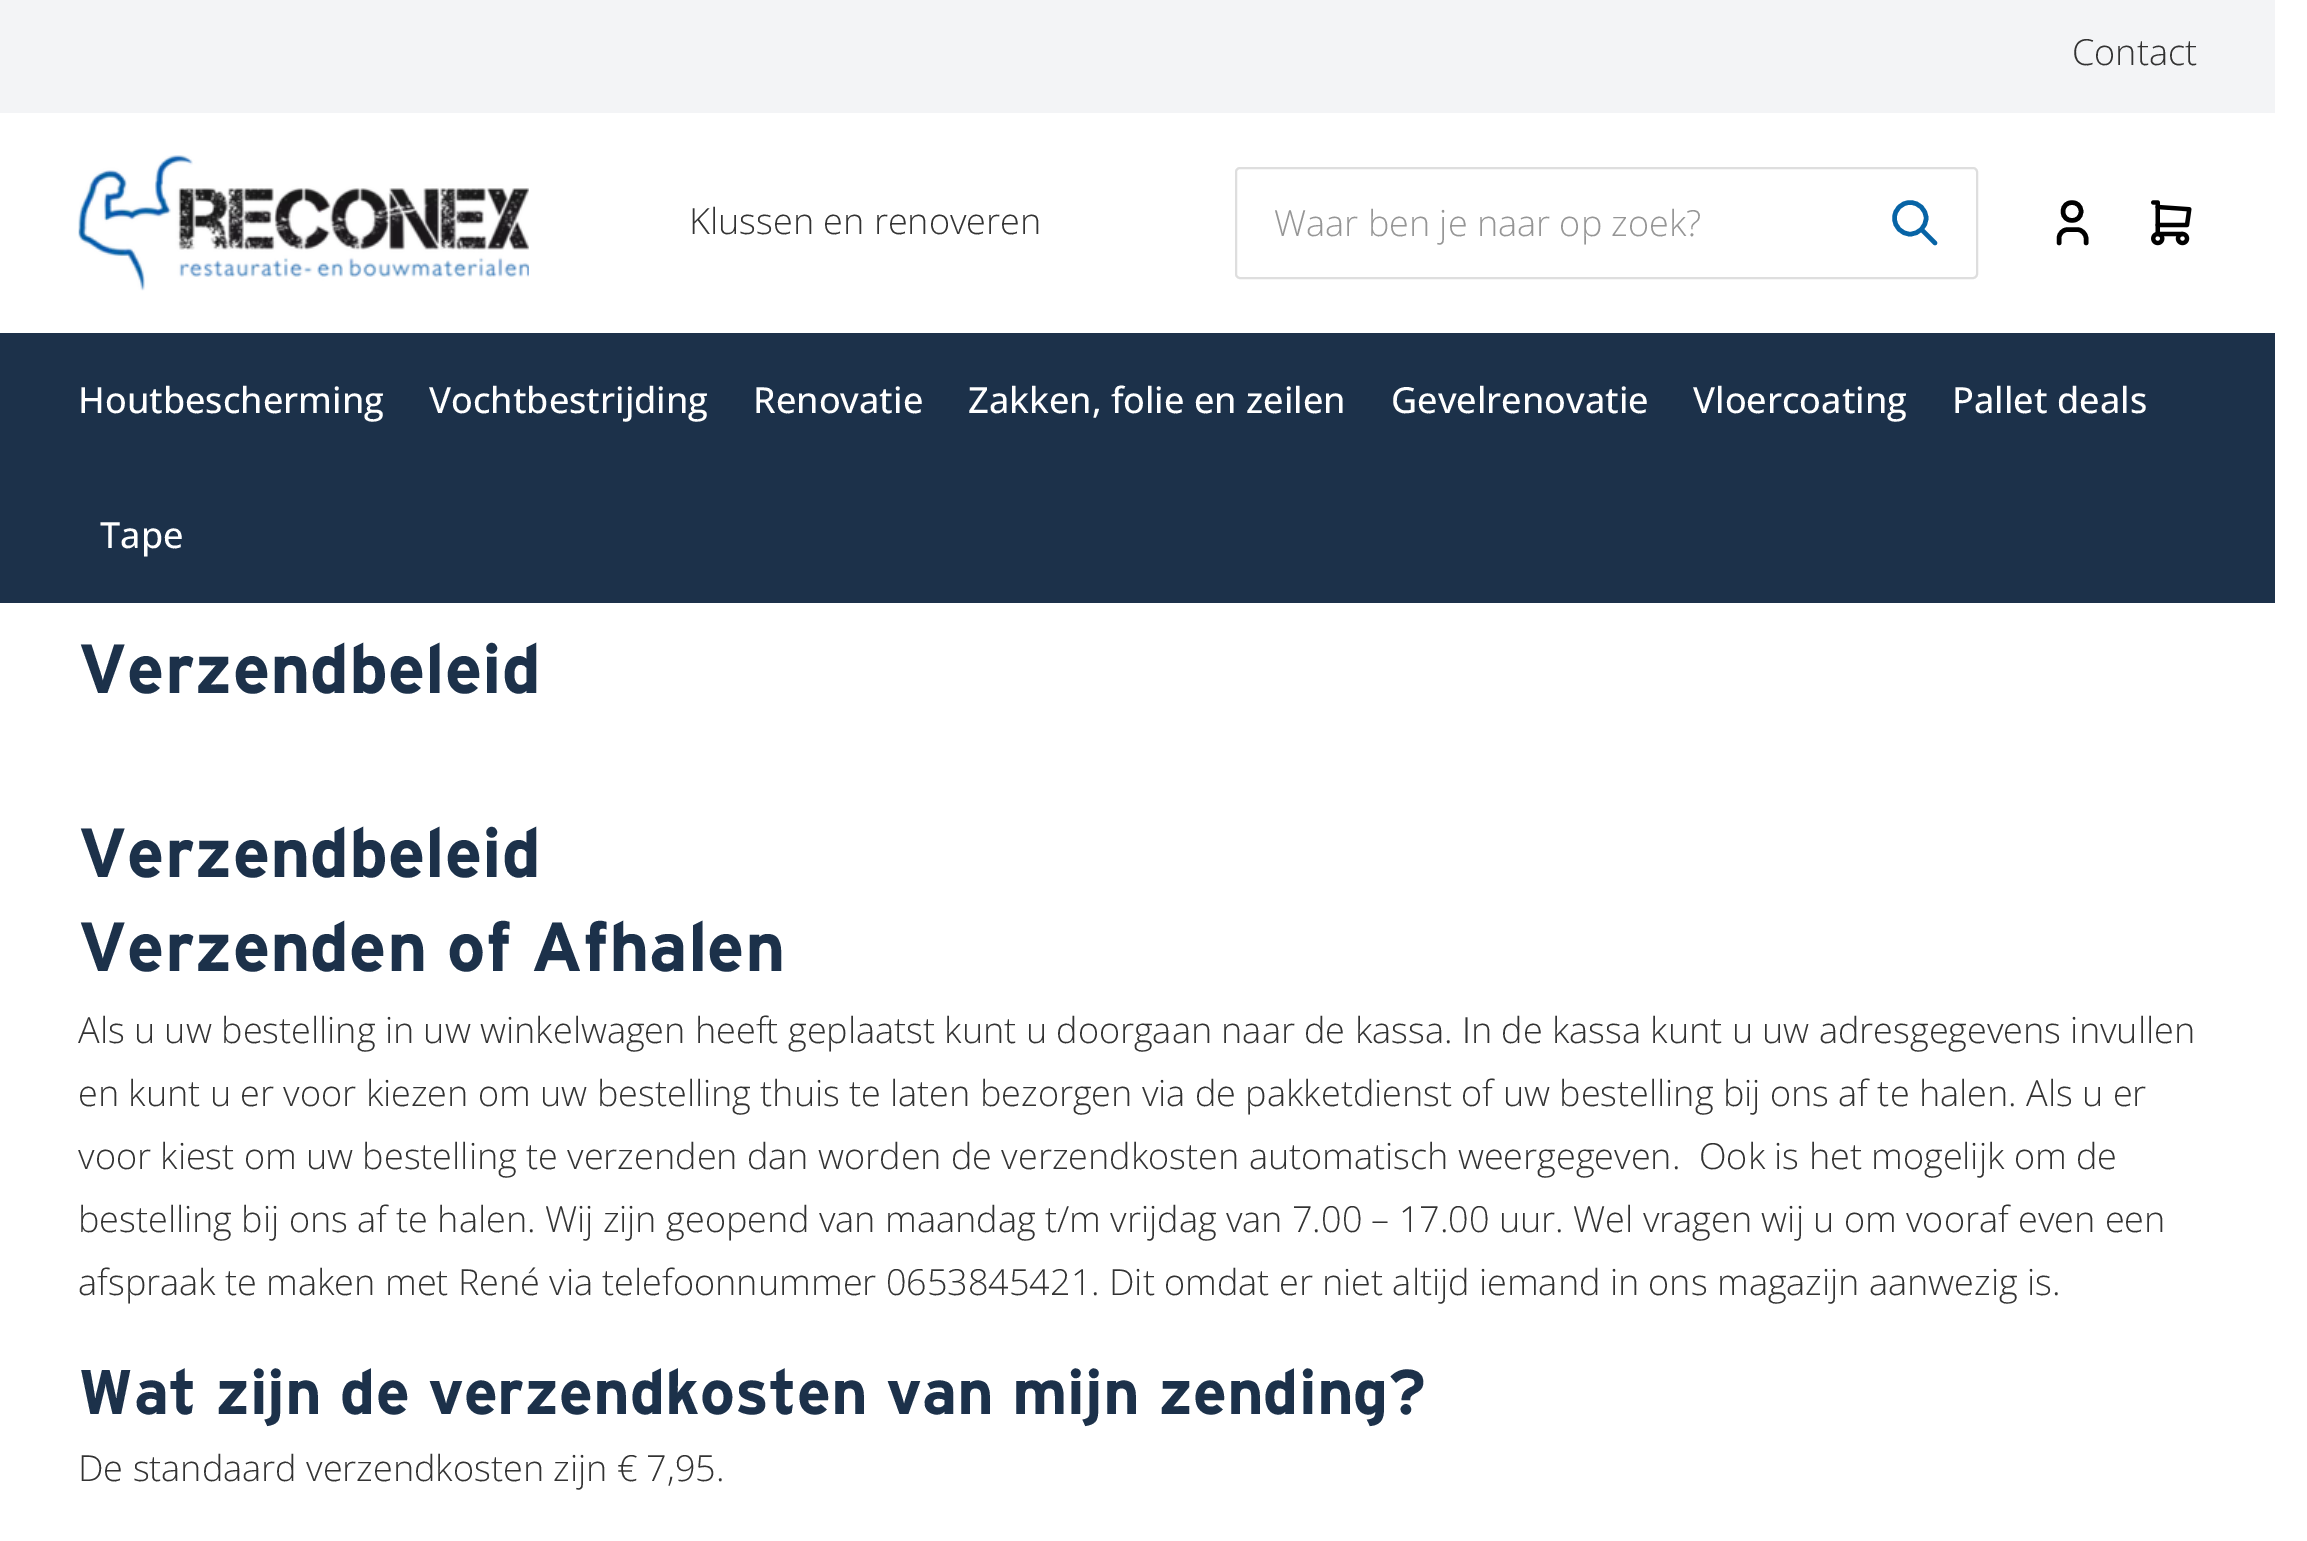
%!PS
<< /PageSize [2307 1541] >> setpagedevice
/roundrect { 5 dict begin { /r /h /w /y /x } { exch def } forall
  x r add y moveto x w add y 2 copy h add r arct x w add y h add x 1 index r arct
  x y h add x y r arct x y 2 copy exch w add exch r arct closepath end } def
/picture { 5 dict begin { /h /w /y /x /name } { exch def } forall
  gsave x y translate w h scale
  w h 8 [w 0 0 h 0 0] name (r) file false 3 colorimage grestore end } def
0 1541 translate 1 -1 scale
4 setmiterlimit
1 setgray
0 0 2307 1541 rectfill
0.953 0.957 0.965 setrgbcolor
0 0 2275 113 rectfill
/OpenSans-Light [36 0 0 -36 0 0] selectfont
0.2 setgray
2072 65 moveto (Contact) show
(img1.rgb) 78 155 451 136 picture
689 234 moveto (Klussen en renoveren) show
0 setgray
4.5 setlinewidth
1 setlinecap
1 setlinejoin
newpath 2063 211.5 moveto 2063 223.5 2081 223.5 2081 211.5 curveto 2081 199.5 2063 199.5 2063 211.5 curveto 2059 243 moveto 2059 238.5 lineto 2059 233.5 2063 229.5 2068 229.5 curveto 2077 229.5 lineto 2081.5 229.5 2086 233.5 2086 238.5 curveto 2086 243 lineto stroke
(img2.rgb) 2151 200 41 46 picture
0.871 setgray
2 setlinewidth
0 setlinecap
0 setlinejoin
1236 168 741 110 4 roundrect stroke
0.588 setgray
1274 236 moveto (Waar ben je naar op zoek?) show
0.027 0.392 0.651 setrgbcolor
4.5 setlinewidth
1 setlinecap
1 setlinejoin
newpath 1894.5 218 moveto 1894.5 227 1901.5 234 1910 234 curveto 1919 234 1926 227 1926 218 curveto 1926 209.5 1919 202.5 1910 202.5 curveto 1901.5 202.5 1894.5 209.5 1894.5 218 curveto 1935 243 moveto 1921.5 229.5 lineto stroke
0.11 0.192 0.29 setrgbcolor
0 333 2275 270 rectfill
/OpenSans-Medium [36 0 0 -36 0 0] selectfont
1 setgray
78 413 moveto (Houtbescherming) show
429 413 moveto (Vochtbestrijding) show
753 413 moveto (Renovatie) show
968 413 moveto (Zakken, folie en zeilen) show
1391 413 moveto (Gevelrenovatie) show
1693 413 moveto (Vloercoating) show
1952 413 moveto (Pallet deals) show
100 548 moveto (Tape) show
/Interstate-Bold [69.25 0 0 -69.25 0 0] selectfont
0.11 0.192 0.29 setrgbcolor
78 693 moveto (Verzendbeleid) show
78 877 moveto (Verzendbeleid) show
78 971 moveto (Verzenden of Afhalen) show
/OpenSans-Light [36 0 0 -36 0 0] selectfont
0.2 setgray
78 1043 moveto (Als u uw bestelling in uw winkelwagen heeft geplaatst kunt u doorgaan naar de kassa. In de kassa kunt u uw adresgegevens invullen) show
78 1106 moveto (en kunt u er voor kiezen om uw bestelling thuis te laten bezorgen via de pakketdienst of uw bestelling bij ons af te halen. Als u er) show
78 1169 moveto (voor kiest om uw bestelling te verzenden dan worden de verzendkosten automatisch weergegeven.  Ook is het mogelijk om de) show
78 1232 moveto (bestelling bij ons af te halen. Wij zijn geopend van maandag t/m vrijdag van 7.00 – 17.00 uur. Wel vragen wij u om vooraf even een) show
78 1295 moveto (afspraak te maken met René via telefoonnummer 0653845421. Dit omdat er niet altijd iemand in ons magazijn aanwezig is.) show
/Interstate-Bold [63 0 0 -63 0 0] selectfont
0.11 0.192 0.29 setrgbcolor
78 1414 moveto (Wat zijn de verzendkosten van mijn zending?) show
/OpenSans-Light [36 0 0 -36 0 0] selectfont
0.2 setgray
78 1481 moveto (De standaard verzendkosten zijn € 7,95.) show
showpage
